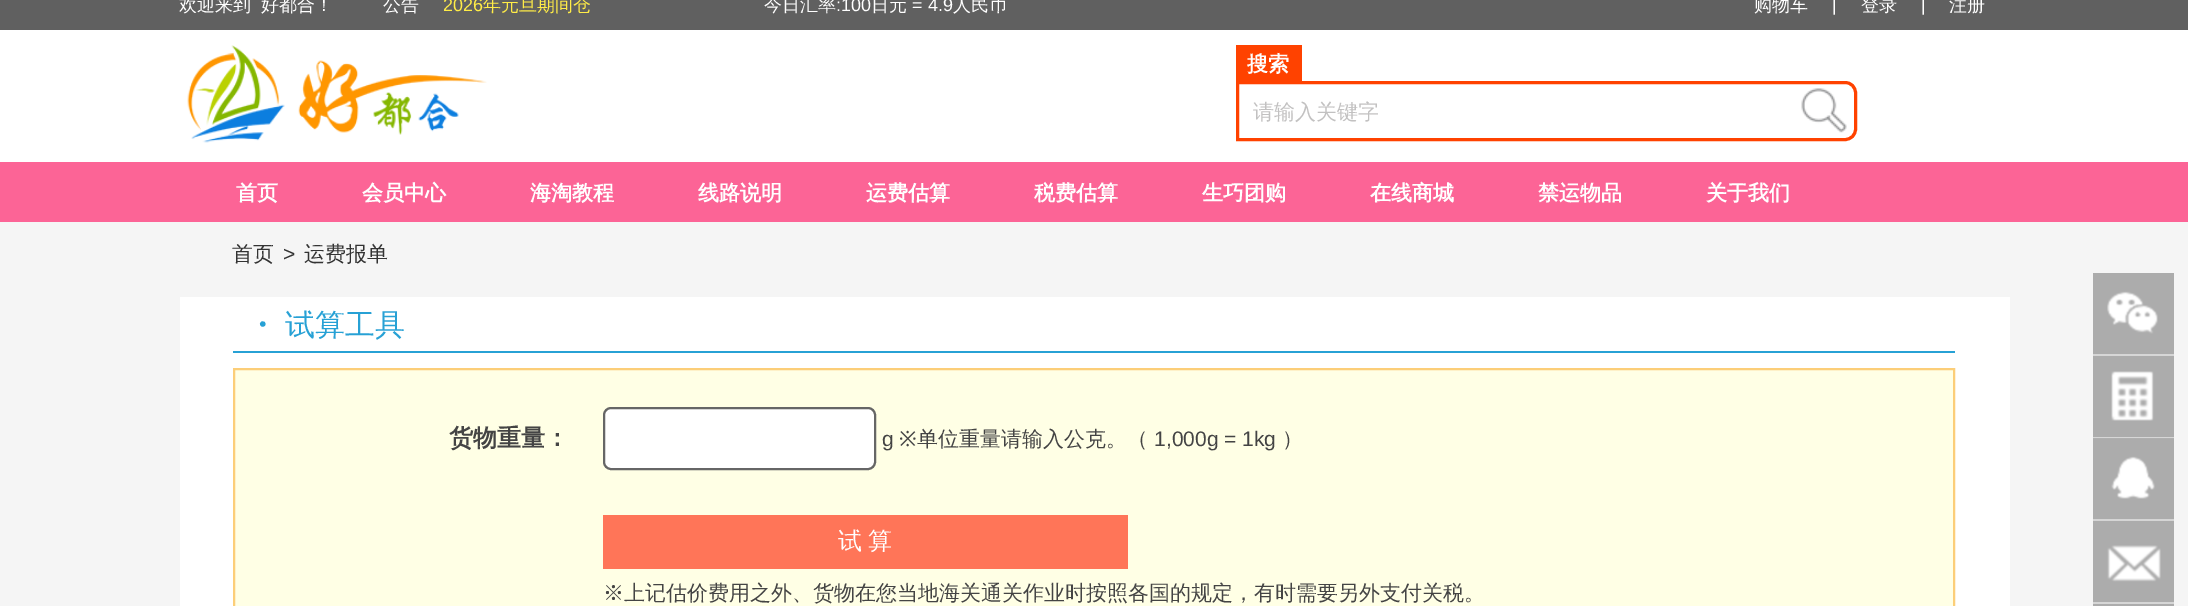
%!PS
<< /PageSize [2188 606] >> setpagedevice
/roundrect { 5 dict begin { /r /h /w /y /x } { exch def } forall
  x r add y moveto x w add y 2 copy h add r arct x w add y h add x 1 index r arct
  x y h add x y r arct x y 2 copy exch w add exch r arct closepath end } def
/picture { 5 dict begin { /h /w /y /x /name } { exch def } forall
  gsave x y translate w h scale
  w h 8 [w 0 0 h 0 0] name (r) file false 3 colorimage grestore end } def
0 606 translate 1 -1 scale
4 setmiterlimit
1 setgray
0 0 2188 606 rectfill
0.376 setgray
0 0 2188 30 rectfill
/WenQuanYiZenHei-Medium [18 0 0 -18 0 0] selectfont
1 setgray
179 11 moveto (欢迎来到) show
261 11 moveto (好都合！) show
383 11 moveto (公告) show
/LiberationSans-Regular [18 0 0 -18 0 0] selectfont
1 0.925 0.278 setrgbcolor
443 11 moveto (2026) show
/WenQuanYiZenHei-Medium [18 0 0 -18 0 0] selectfont
483 11 moveto (年元旦期间仓) show
1 setgray
764 11 moveto (今日汇率) show
/LiberationSans-Regular [18 0 0 -18 0 0] selectfont
836 11 moveto (:100) show
/WenQuanYiZenHei-Medium [18 0 0 -18 0 0] selectfont
871 11 moveto (日元) show
/LiberationSans-Regular [18 0 0 -18 0 0] selectfont
912 11 moveto (= 4.9) show
/WenQuanYiZenHei-Medium [18 0 0 -18 0 0] selectfont
953 11 moveto (人民币) show
1754 11 moveto (购物车) show
/LiberationSans-Regular [18 0 0 -18 0 0] selectfont
1832 11 moveto (|) show
/WenQuanYiZenHei-Medium [18 0 0 -18 0 0] selectfont
1861 11 moveto (登录) show
/LiberationSans-Regular [18 0 0 -18 0 0] selectfont
1921 11 moveto (|) show
/WenQuanYiZenHei-Medium [18 0 0 -18 0 0] selectfont
1949 11 moveto (注册) show
(img1.rgb) 187 45 300 98 picture
1 0.259 0 setrgbcolor
1236 45 66 36 rectfill
/WenQuanYiZenHei-Bold [21 0 0 -21 0 0] selectfont
1 setgray
1247 71 moveto (搜索) show
1 0.259 0 setrgbcolor
3 setlinewidth
newpath 1237.5 82.5 moveto 1845 82.5 lineto 1851 82.5 1855.5 87 1855.5 93 curveto 1855.5 129 lineto 1855.5 135 1851 139.5 1845 139.5 curveto 1237.5 139.5 lineto closepath stroke
/WenQuanYiZenHei-Medium [21 0 0 -21 0 0] selectfont
0.761 0.757 0.757 setrgbcolor
1253 119 moveto (请输入关键字) show
(img2.rgb) 1801 88 46 45 picture
0.988 0.392 0.588 setrgbcolor
0 162 2188 60 rectfill
/WenQuanYiZenHei-Bold [21 0 0 -21 0 0] selectfont
1 setgray
236 200 moveto (首页) show
362 200 moveto (会员中心) show
530 200 moveto (海淘教程) show
698 200 moveto (线路说明) show
866 200 moveto (运费估算) show
1034 200 moveto (税费估算) show
1202 200 moveto (生巧团购) show
1370 200 moveto (在线商城) show
1538 200 moveto (禁运物品) show
1706 200 moveto (关于我们) show
0.961 setgray
0 222 2188 384 rectfill
0.675 setgray
2093 439 81 80 rectfill
0.686 setgray
2093 438 81 1 rectfill
/WenQuanYiZenHei-Medium [21 0 0 -21 0 0] selectfont
0.2 setgray
232 261 moveto (首页) show
/LiberationSans-Regular [21 0 0 -21 0 0] selectfont
283 261 moveto (>) show
/WenQuanYiZenHei-Medium [21 0 0 -21 0 0] selectfont
304 261 moveto (运费报单) show
1 setgray
180 297 1830 309 rectfill
0.153 0.631 0.835 setrgbcolor
233 351 1722 2 rectfill
/WenQuanYiZenHei-Bold [30 0 0 -30 0 0] selectfont
247 335 moveto (・) show
/WenQuanYiZenHei-Medium [30 0 0 -30 0 0] selectfont
285 335 moveto (试算工具) show
1 1 0.898 setrgbcolor
newpath 234 369 moveto 1954 369 lineto 1954 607 lineto 234 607 lineto closepath gsave fill grestore
0.988 0.808 0.471 setrgbcolor
2 setlinewidth
stroke
/WenQuanYiZenHei-Bold [24 0 0 -24 0 0] selectfont
0.267 setgray
449 446 moveto (货物重量：) show
1 setgray
604 408 271 61 7 roundrect gsave fill grestore
0.4 setgray
stroke
/LiberationSans-Regular [21 0 0 -21 0 0] selectfont
0.267 setgray
882 446 moveto (g) show
/NotoSans-Regular [21 0 0 -21 0 0] selectfont
899 446 moveto (※) show
/WenQuanYiZenHei-Medium [21 0 0 -21 0 0] selectfont
917 446 moveto (单位重量请输入公克。（) show
/LiberationSans-Regular [21 0 0 -21 0 0] selectfont
1154 446 moveto (1,000g = 1kg) show
/WenQuanYiZenHei-Medium [21 0 0 -21 0 0] selectfont
1282 446 moveto (）) show
1 0.459 0.345 setrgbcolor
603 515 525 54 rectfill
/WenQuanYiZenHei-Medium [24 0 0 -24 0 0] selectfont
1 setgray
838 549 moveto -1 0 32 (试 算) widthshow
/WenQuanYiZenHei-Medium [21 0 0 -21 0 0] selectfont
0.267 setgray
603 600 moveto (※上记估价费用之外、货物在您当地海关通关作业时按照各国的规定，有时需要另外支付关税。) show
0.675 setgray
2093 273 81 81 rectfill
0.839 setgray
2093 354 81 2 rectfill
(img3.rgb) 2107 291 51 43 picture
0.675 setgray
2093 356 81 81 rectfill
0.839 setgray
2093 437 81 1 rectfill
(img4.rgb) 2111 371 43 50 picture
0.835 setgray
2093 519 81 2 rectfill
(img5.rgb) 2111 456 44 43 picture
0.675 setgray
2093 521 81 81 rectfill
0.839 setgray
2093 602 81 2 rectfill
(img6.rgb) 2107 545 54 37 picture
0.675 setgray
2093 604 81 2 rectfill
showpage
